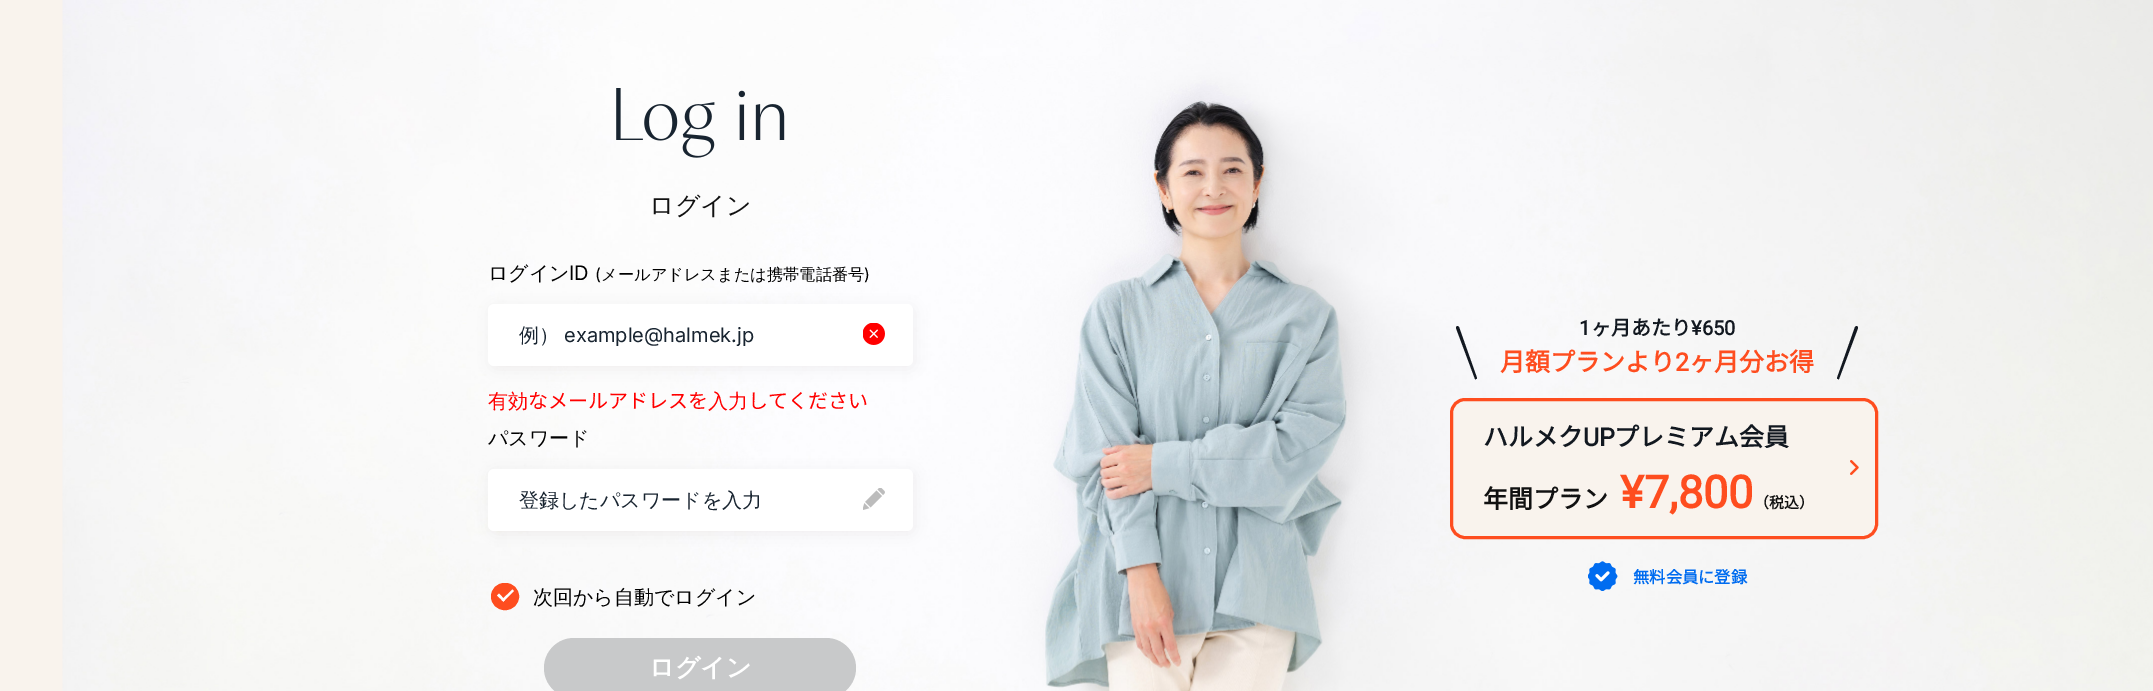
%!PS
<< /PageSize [2153 691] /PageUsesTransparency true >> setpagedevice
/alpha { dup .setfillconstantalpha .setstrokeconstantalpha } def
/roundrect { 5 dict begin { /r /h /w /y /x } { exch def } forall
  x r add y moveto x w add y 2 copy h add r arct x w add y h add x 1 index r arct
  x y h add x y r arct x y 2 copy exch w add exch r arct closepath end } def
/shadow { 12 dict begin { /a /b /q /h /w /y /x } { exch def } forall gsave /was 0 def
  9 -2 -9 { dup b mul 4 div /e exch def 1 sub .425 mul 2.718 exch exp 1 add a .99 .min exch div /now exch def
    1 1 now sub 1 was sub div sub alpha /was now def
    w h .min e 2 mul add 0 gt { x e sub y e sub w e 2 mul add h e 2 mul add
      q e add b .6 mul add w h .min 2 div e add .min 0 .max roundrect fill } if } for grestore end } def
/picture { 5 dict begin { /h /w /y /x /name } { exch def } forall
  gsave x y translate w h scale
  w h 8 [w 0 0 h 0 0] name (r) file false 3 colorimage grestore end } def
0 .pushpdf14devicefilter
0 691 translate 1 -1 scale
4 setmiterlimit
0.976 0.953 0.929 setrgbcolor
0 0 2153 691 rectfill
(img1.rgb) 62 0 2091 691 picture
(img2.rgb) 616 88 169 70 picture
/WenQuanYiZenHei-Medium [25 0 0 -25 0 0] selectfont
0.067 setgray
649 214 moveto (ログイン) show
/WenQuanYiZenHei-Medium [20 0 0 -20 0 0] selectfont
0 setgray
488 280 moveto (ログイン) show
/Inter-Regular [20 0 0 -20 0 0] selectfont
569 280 moveto (ID) show
/Inter-Regular [16.25 0 0 -16.25 0 0] selectfont
595 280 moveto (\() show
/WenQuanYiZenHei-Medium [16.25 0 0 -16.25 0 0] selectfont
601 280 moveto (メールアドレスまたは携帯電話番号) show
/Inter-Regular [16.25 0 0 -16.25 0 0] selectfont
864 280 moveto (\)) show
0.141 0.094 0.024 setrgbcolor
490 306 425 63 6 7.5 0.06 shadow
1 setgray
488 304 425 62 6 roundrect fill
/WenQuanYiZenHei-Medium [20 0 0 -20 0 0] selectfont
0.094 0.141 0.188 setrgbcolor
519 342 moveto (例）) show
/Inter-Regular [20 0 0 -20 0 0] selectfont
564 342 moveto (example@halmek.jp) show
(img3.rgb) 863 323 22 22 picture
/WenQuanYiZenHei-Medium [20 0 0 -20 0 0] selectfont
1 0 0 setrgbcolor
488 408 moveto (有効) show
/NotoSansJP-Thin [20 0 0 -20 0 0] selectfont
528 408 moveto (なメールアドレスを) show
/WenQuanYiZenHei-Medium [20 0 0 -20 0 0] selectfont
708 408 moveto (入力) show
/NotoSansJP-Thin [20 0 0 -20 0 0] selectfont
748 408 moveto (してください) show
/WenQuanYiZenHei-Medium [20 0 0 -20 0 0] selectfont
0 setgray
488 445 moveto (パスワード) show
0.141 0.094 0.024 setrgbcolor
490 471 425 63 6 7.5 0.06 shadow
1 setgray
488 469 425 62 6 roundrect fill
0.094 0.141 0.188 setrgbcolor
519 507 moveto (登録したパスワードを入力) show
(img4.rgb) 863 488 22 22 picture
0.996 0.302 0.122 setrgbcolor
491.5 583.5 27 26 13 roundrect gsave fill grestore
stroke
0 setgray
533 604 moveto (次回から自動でログイン) show
1 setgray
newpath 512.5 589.5 moveto 514 591 lineto 503.5 601.5 lineto 501.5 600 lineto closepath fill
newpath 499 593.5 moveto 505 600 lineto 503.5 601.5 lineto 497 595.5 lineto closepath fill
0.784 0.788 0.792 setrgbcolor
544 638 312 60 30 roundrect fill
/WenQuanYiZenHei-Bold [25 0 0 -25 0 0] selectfont
1 setgray
649 676 moveto (ログイン) show
0.071 0.094 0.125 setrgbcolor
newpath 1457 326 moveto 1458 326 1458 326 1459 327 curveto 1477 378 lineto 1477 378 1477 379 1476 379 curveto 1476 380 1475 379 1475 379 curveto 1456 328 lineto 1456 327 1456 327 1457 326 curveto closepath fill
/Roboto-Bold [20 0 0 -20 0 0] selectfont
1579 335 moveto (1) show
/NotoSansJP-Bold [20 0 0 -20 0 0] selectfont
1591 335 moveto (ヶ月あたり) show
/Roboto-Bold [20 0 0 -20 0 0] selectfont
1691 335 moveto (¥650) show
newpath 1857 326 moveto 1858 327 1858 327 1858 328 curveto 1839 379 lineto 1839 379 1838 380 1838 379 curveto 1837 379 1837 378 1837 378 curveto 1855 327 lineto 1856 326 1856 326 1857 326 curveto closepath fill
/NotoSansJP-Bold [25 0 0 -25 0 0] selectfont
0.996 0.302 0.122 setrgbcolor
1500 371 moveto (月額プランより) show
/Roboto-Bold [25 0 0 -25 0 0] selectfont
1675 371 moveto (2) show
/NotoSansJP-Bold [25 0 0 -25 0 0] selectfont
1689 371 moveto (ヶ月分お得) show
0.976 0.953 0.929 setrgbcolor
1451.5 399.5 425 138 13.5 roundrect gsave fill grestore
0.996 0.302 0.122 setrgbcolor
3 setlinewidth
stroke
0.071 0.094 0.125 setrgbcolor
1483 446 moveto (ハルメク) show
/Roboto-Bold [25 0 0 -25 0 0] selectfont
1583 446 moveto (UP) show
/NotoSansJP-Bold [25 0 0 -25 0 0] selectfont
1614 446 moveto (プレミアム会員) show
(img5.rgb) 1850 460 9 15 picture
0.067 setgray
1483 508 moveto (年間プラン) show
/Roboto-Bold [45 0 0 -45 0 0] selectfont
0.996 0.302 0.122 setrgbcolor
1620 508 moveto (¥7,800) show
/NotoSansJP-Bold [15 0 0 -15 0 0] selectfont
0.067 setgray
1754 508 moveto (（税込）) show
(img6.rgb) 1588 561 30 30 picture
/NotoSansJP-Bold [16.25 0 0 -16.25 0 0] selectfont
0 0.424 0.941 setrgbcolor
1633 583 moveto (無料会員に登録) show
.poppdf14devicefilter showpage
